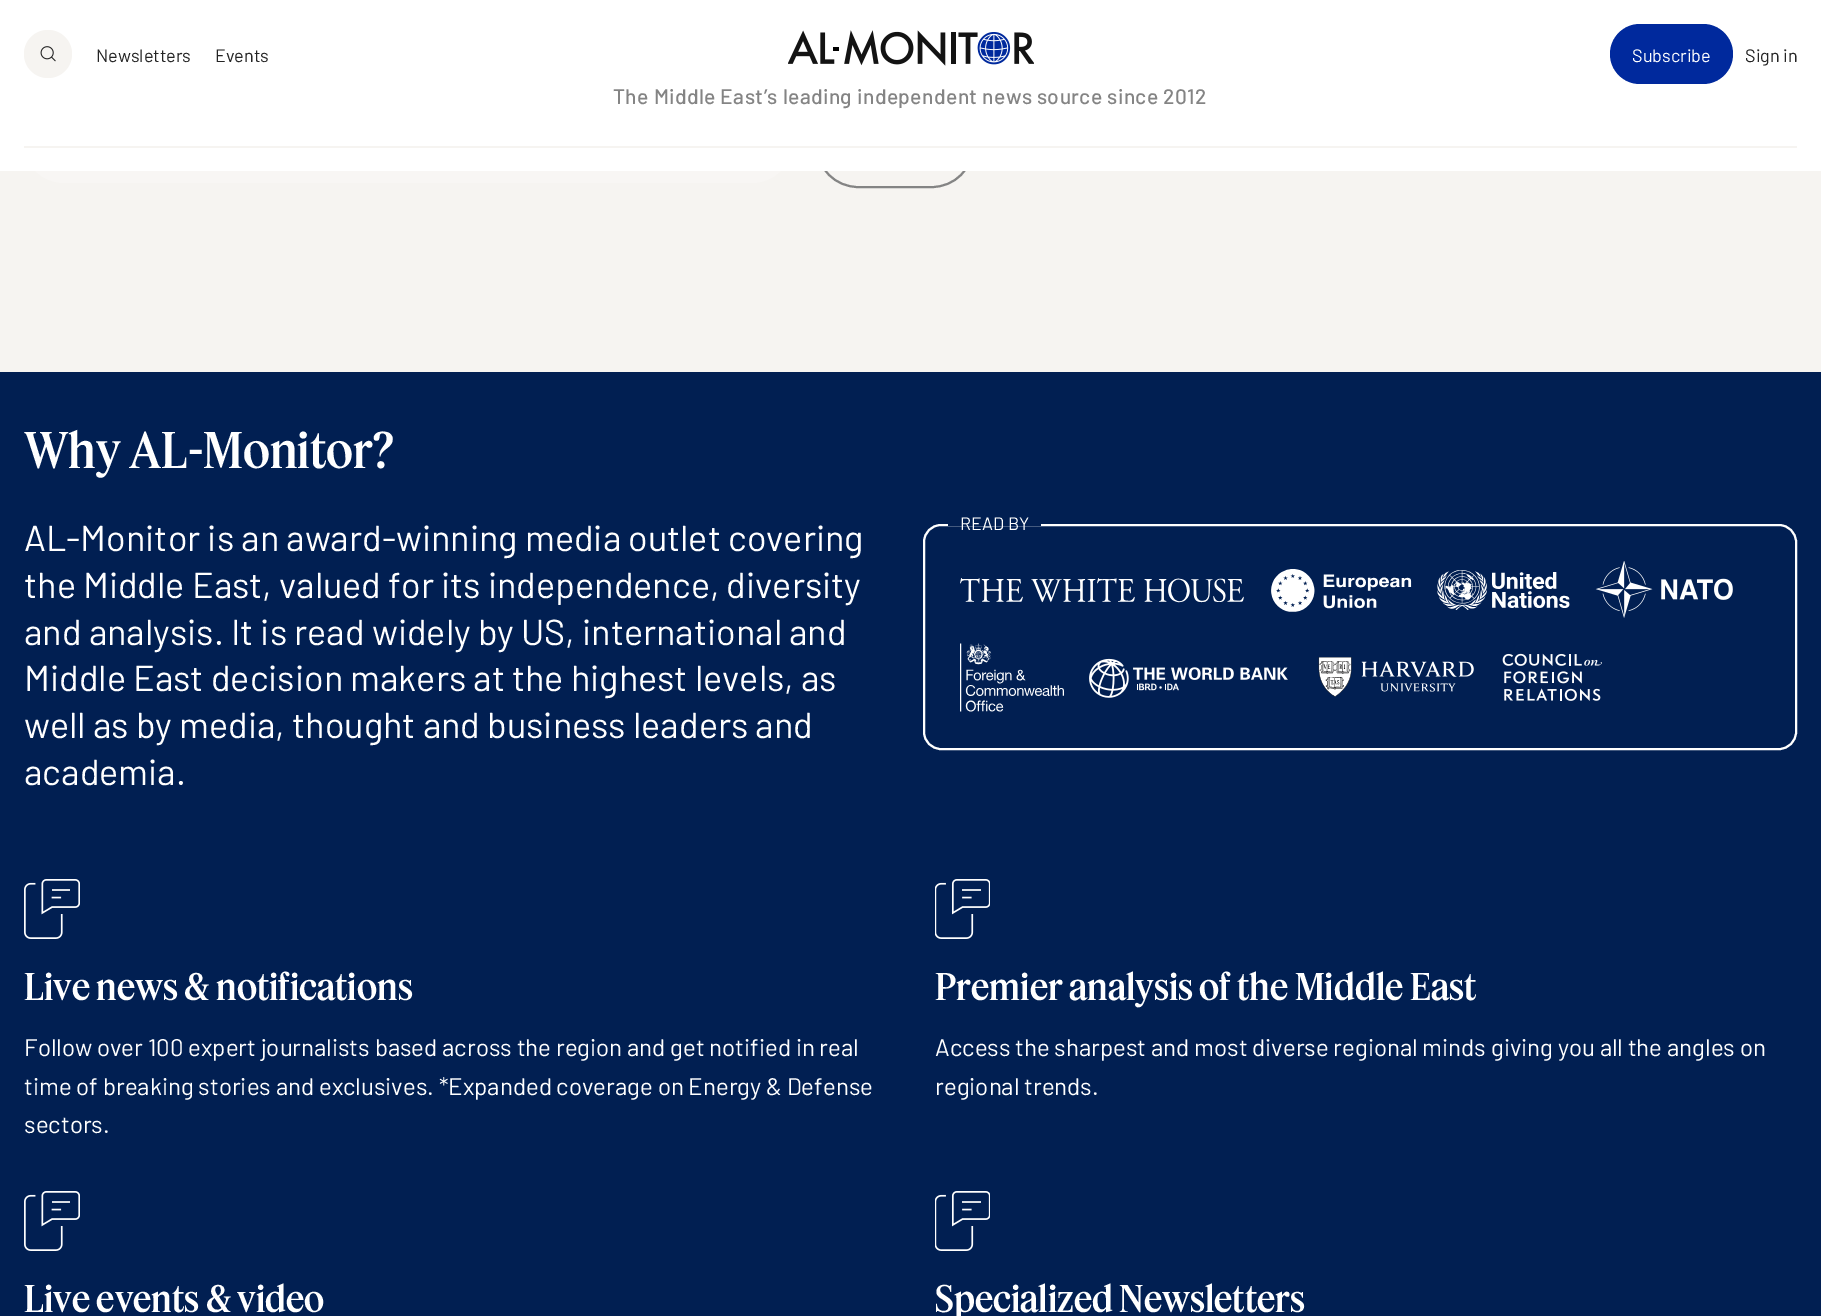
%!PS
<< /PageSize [1821 1316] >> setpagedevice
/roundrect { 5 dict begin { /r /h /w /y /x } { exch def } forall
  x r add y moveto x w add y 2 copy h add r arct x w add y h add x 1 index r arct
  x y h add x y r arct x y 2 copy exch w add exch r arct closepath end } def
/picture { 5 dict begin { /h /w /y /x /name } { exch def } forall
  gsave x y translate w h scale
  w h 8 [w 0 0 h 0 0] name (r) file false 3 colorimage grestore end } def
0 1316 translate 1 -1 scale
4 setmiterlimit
0.965 0.957 0.945 setrgbcolor
0 0 1821 1316 rectfill
0.973 0.965 0.957 setrgbcolor
24 104 768 79 39.5 roundrect fill
0.518 setgray
2 setlinewidth
817 105 156 82 41 roundrect stroke
1 setgray
0 0 1821 171 rectfill
0.965 0.957 0.945 setrgbcolor
newpath 48 54 24 0 360 arc closepath fill
(img1.rgb) 40 46 16 16 picture
/Barlow-Regular [18 0 0 -18 0 0] selectfont
0.141 setgray
96 62 moveto (Newsletters) show
215 62 moveto (Events) show
(img2.rgb) 788 30 246 36 picture
0 0.161 0.616 setrgbcolor
1610 24 123 60 30 roundrect fill
1 setgray
1632 62 moveto (Subscribe) show
0.141 setgray
1745 62 moveto (Sign in) show
0.965 0.957 0.945 setrgbcolor
24 146 1773 2 rectfill
/Barlow-Medium [21 0 0 -21 0 0] selectfont
0.518 setgray
613 104 moveto 0.42 0 (The Middle Eastʼs leading independent news source since 2012) ashow
0.004 0.122 0.322 setrgbcolor
0 372 1821 944 rectfill
/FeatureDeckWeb-Medium [48 0 0 -48 0 0] selectfont
1 setgray
24 468 moveto (Why AL-Monitor?) show
/Barlow-Regular [36 0 0 -36 0 0] selectfont
24 551 moveto (AL-Monitor is an award-winning media outlet covering) show
24 598 moveto (the Middle East, valued for its independence, diversity) show
24 645 moveto (and analysis. It is read widely by US, international and) show
24 691 moveto (Middle East decision makers at the highest levels, as) show
24 738 moveto (well as by media, thought and business leaders and) show
24 785 moveto (academia.) show
924 525 872 224 17 roundrect stroke
0.004 0.122 0.322 setrgbcolor
948 524 93 2 rectfill
/Barlow-Regular [18 0 0 -18 0 0] selectfont
1 setgray
960 530 moveto (READ BY) show
(img3.rgb) 960 578 284 25 picture
(img4.rgb) 1271 569 141 43 picture
(img5.rgb) 1437 570 133 40 picture
(img6.rgb) 1595 561 138 57 picture
(img7.rgb) 960 643 104 69 picture
(img8.rgb) 1089 658 199 40 picture
(img9.rgb) 1318 657 156 40 picture
(img10.rgb) 1502 653 100 48 picture
(img11.rgb) 24 879 56 60 picture
/FeatureDeckWeb-Medium [36 0 0 -36 0 0] selectfont
24 1000 moveto (Live news & notifications) show
/Barlow-Regular [24 0 0 -24 0 0] selectfont
24 1056 moveto (Follow over 100 expert journalists based across the region and get notified in real) show
24 1095 moveto (time of breaking stories and exclusives. *Expanded coverage on Energy & Defense) show
24 1133 moveto (sectors.) show
(img12.rgb) 935 879 55 60 picture
/FeatureDeckWeb-Medium [36 0 0 -36 0 0] selectfont
935 1000 moveto (Premier analysis of the Middle East) show
/Barlow-Regular [24 0 0 -24 0 0] selectfont
935 1056 moveto (Access the sharpest and most diverse regional minds giving you all the angles on) show
935 1095 moveto (regional trends.) show
(img11.rgb) 24 1191 56 60 picture
/FeatureDeckWeb-Medium [36 0 0 -36 0 0] selectfont
24 1312 moveto (Live events & video) show
(img12.rgb) 935 1191 55 60 picture
935 1312 moveto (Specialized Newsletters) show
showpage
